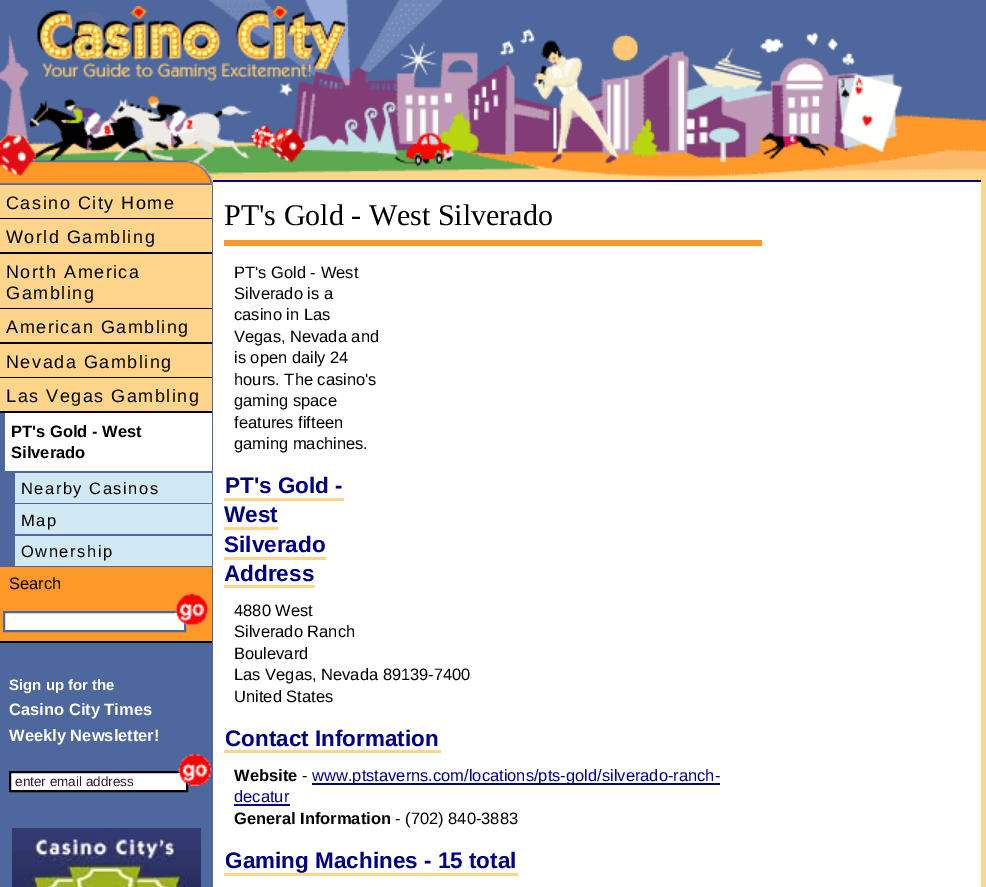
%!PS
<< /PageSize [986 887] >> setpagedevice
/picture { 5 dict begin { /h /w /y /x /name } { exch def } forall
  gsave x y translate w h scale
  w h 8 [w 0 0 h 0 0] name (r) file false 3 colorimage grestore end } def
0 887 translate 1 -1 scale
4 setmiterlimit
1 setgray
0 0 986 887 rectfill
(img1.rgb) 0 181 986 706 picture
(img2.rgb) 0 0 986 182 picture
(img3.rgb) 37 6 309 76 picture
(img4.rgb) 0 135 213 50 picture
0.306 0.404 0.616 setrgbcolor
212 185 1 702 rectfill
0.996 0.835 0.541 setrgbcolor
0 185 212 33 rectfill
0 setgray
0 218 212 1 rectfill
/LiberationSans-Regular [18 0 0 -18 0 0] selectfont
6 209 moveto 1.5 0 (Casino City Home) ashow
0.996 0.835 0.541 setrgbcolor
0 219 212 33 rectfill
0 setgray
0 252 212 2 rectfill
6 243 moveto 1.5 0 (World Gambling) ashow
0.996 0.835 0.541 setrgbcolor
0 254 212 54 rectfill
0 setgray
0 308 212 1 rectfill
6 278 moveto 1.5 0 (North America) ashow
6 299 moveto 1.5 0 (Gambling) ashow
0.996 0.835 0.541 setrgbcolor
0 309 212 33 rectfill
0 setgray
0 342 212 2 rectfill
6 333 moveto 1.5 0 (American Gambling) ashow
0.996 0.835 0.541 setrgbcolor
0 344 212 33 rectfill
0 setgray
0 377 212 1 rectfill
6 368 moveto 1.5 0 (Nevada Gambling) ashow
0.996 0.835 0.541 setrgbcolor
0 378 212 33 rectfill
0 setgray
0 411 212 2 rectfill
6 402 moveto 1.5 0 (Las Vegas Gambling) ashow
1 setgray
5 413 207 58 rectfill
/LiberationSans-Bold [16.5 0 0 -16.5 0 0] selectfont
0 setgray
11 437 moveto (PT's Gold - West) show
11 458 moveto (Silverado) show
0.82 0.914 0.957 setrgbcolor
15 473 197 30 rectfill
/LiberationSans-Regular [16.5 0 0 -16.5 0 0] selectfont
0 setgray
21 494 moveto 1.5 0 (Nearby Casinos) ashow
0.82 0.914 0.957 setrgbcolor
15 504 197 30 rectfill
0 setgray
21 526 moveto 1.5 0 (Map) ashow
0.82 0.914 0.957 setrgbcolor
15 536 197 30 rectfill
0 setgray
21 557 moveto 1.5 0 (Ownership) ashow
0.996 0.6 0.161 setrgbcolor
0 567 212 74 rectfill
0 setgray
0 641 212 2 rectfill
9 589 moveto (Search) show
1 setgray
newpath 4 612 moveto 185 612 lineto 185 631 lineto 4 631 lineto closepath gsave fill grestore
0.306 0.404 0.616 setrgbcolor
2 setlinewidth
stroke
(img5.rgb) 175 594 34 32 picture
/LiberationSans-Bold [15 0 0 -15 0 0] selectfont
1 setgray
9 690 moveto (Sign up for the) show
/LiberationSans-Bold [16.5 0 0 -16.5 0 0] selectfont
9 715 moveto (Casino City Times) show
9 741 moveto (Weekly Newsletter!) show
newpath 10 772 moveto 187 772 lineto 187 791 lineto 10 791 lineto closepath gsave fill grestore
0 setgray
stroke
/LiberationSans-Regular [13.5 0 0 -13.5 0 0] selectfont
0.224 0.067 0.2 setrgbcolor
15 786 moveto (enter email address) show
(img6.rgb) 178 754 34 32 picture
(img7.rgb) 12 828 189 59 picture
1 setgray
213 182 768 705 rectfill
0 0 0.502 setrgbcolor
213 180 768 2 rectfill
/LiberationSerif-Regular [30 0 0 -30 0 0] selectfont
0 setgray
224 225 moveto (PT's Gold - West Silverado) show
0.996 0.6 0.161 setrgbcolor
224 240 538 6 rectfill
/LiberationSans-Regular [16.5 0 0 -16.5 0 0] selectfont
0 setgray
234 278 moveto (PT's Gold - West) show
234 299 moveto (Silverado is a) show
234 320 moveto (casino in Las) show
234 342 moveto (Vegas, Nevada and) show
234 363 moveto (is open daily 24) show
234 385 moveto (hours. The casino's) show
234 406 moveto (gaming space) show
234 428 moveto (features fifteen) show
234 449 moveto (gaming machines.) show
/LiberationSans-Bold [22.5 0 0 -22.5 0 0] selectfont
0 0 0.502 setrgbcolor
225 493 moveto (PT's Gold -) show
0.996 0.835 0.541 setrgbcolor
224 498 120 3 rectfill
0 0 0.502 setrgbcolor
224 522 moveto (West) show
0.996 0.835 0.541 setrgbcolor
224 527 54 3 rectfill
0 0 0.502 setrgbcolor
224 552 moveto (Silverado) show
0.996 0.835 0.541 setrgbcolor
224 557 102 3 rectfill
0 0 0.502 setrgbcolor
224 581 moveto (Address) show
0.996 0.835 0.541 setrgbcolor
224 585 91 3 rectfill
/LiberationSans-Regular [16.5 0 0 -16.5 0 0] selectfont
0 setgray
234 616 moveto (4880 West) show
234 637 moveto (Silverado Ranch) show
234 659 moveto (Boulevard) show
234 680 moveto (Las Vegas, Nevada 89139-7400) show
234 702 moveto (United States) show
/LiberationSans-Bold [22.5 0 0 -22.5 0 0] selectfont
0 0 0.502 setrgbcolor
225 746 moveto (Contact Information) show
0.996 0.835 0.541 setrgbcolor
224 750 217 3 rectfill
/LiberationSans-Bold [16.5 0 0 -16.5 0 0] selectfont
0 setgray
234 781 moveto (Website) show
/LiberationSans-Regular [16.5 0 0 -16.5 0 0] selectfont
302 781 moveto (-) show
0 0 0.502 setrgbcolor
312 783 408 2 rectfill
312 781 moveto (www.ptstaverns.com/locations/pts-gold/silverado-ranch-) show
234 802 moveto (decatur) show
234 804 56 2 rectfill
/LiberationSans-Bold [16.5 0 0 -16.5 0 0] selectfont
0 setgray
234 824 moveto (General Information) show
/LiberationSans-Regular [16.5 0 0 -16.5 0 0] selectfont
395 824 moveto (- \(702\) 840-3883) show
/LiberationSans-Bold [22.5 0 0 -22.5 0 0] selectfont
0 0 0.502 setrgbcolor
225 868 moveto (Gaming Machines - 15 total) show
0.996 0.835 0.541 setrgbcolor
224 873 294 3 rectfill
showpage
